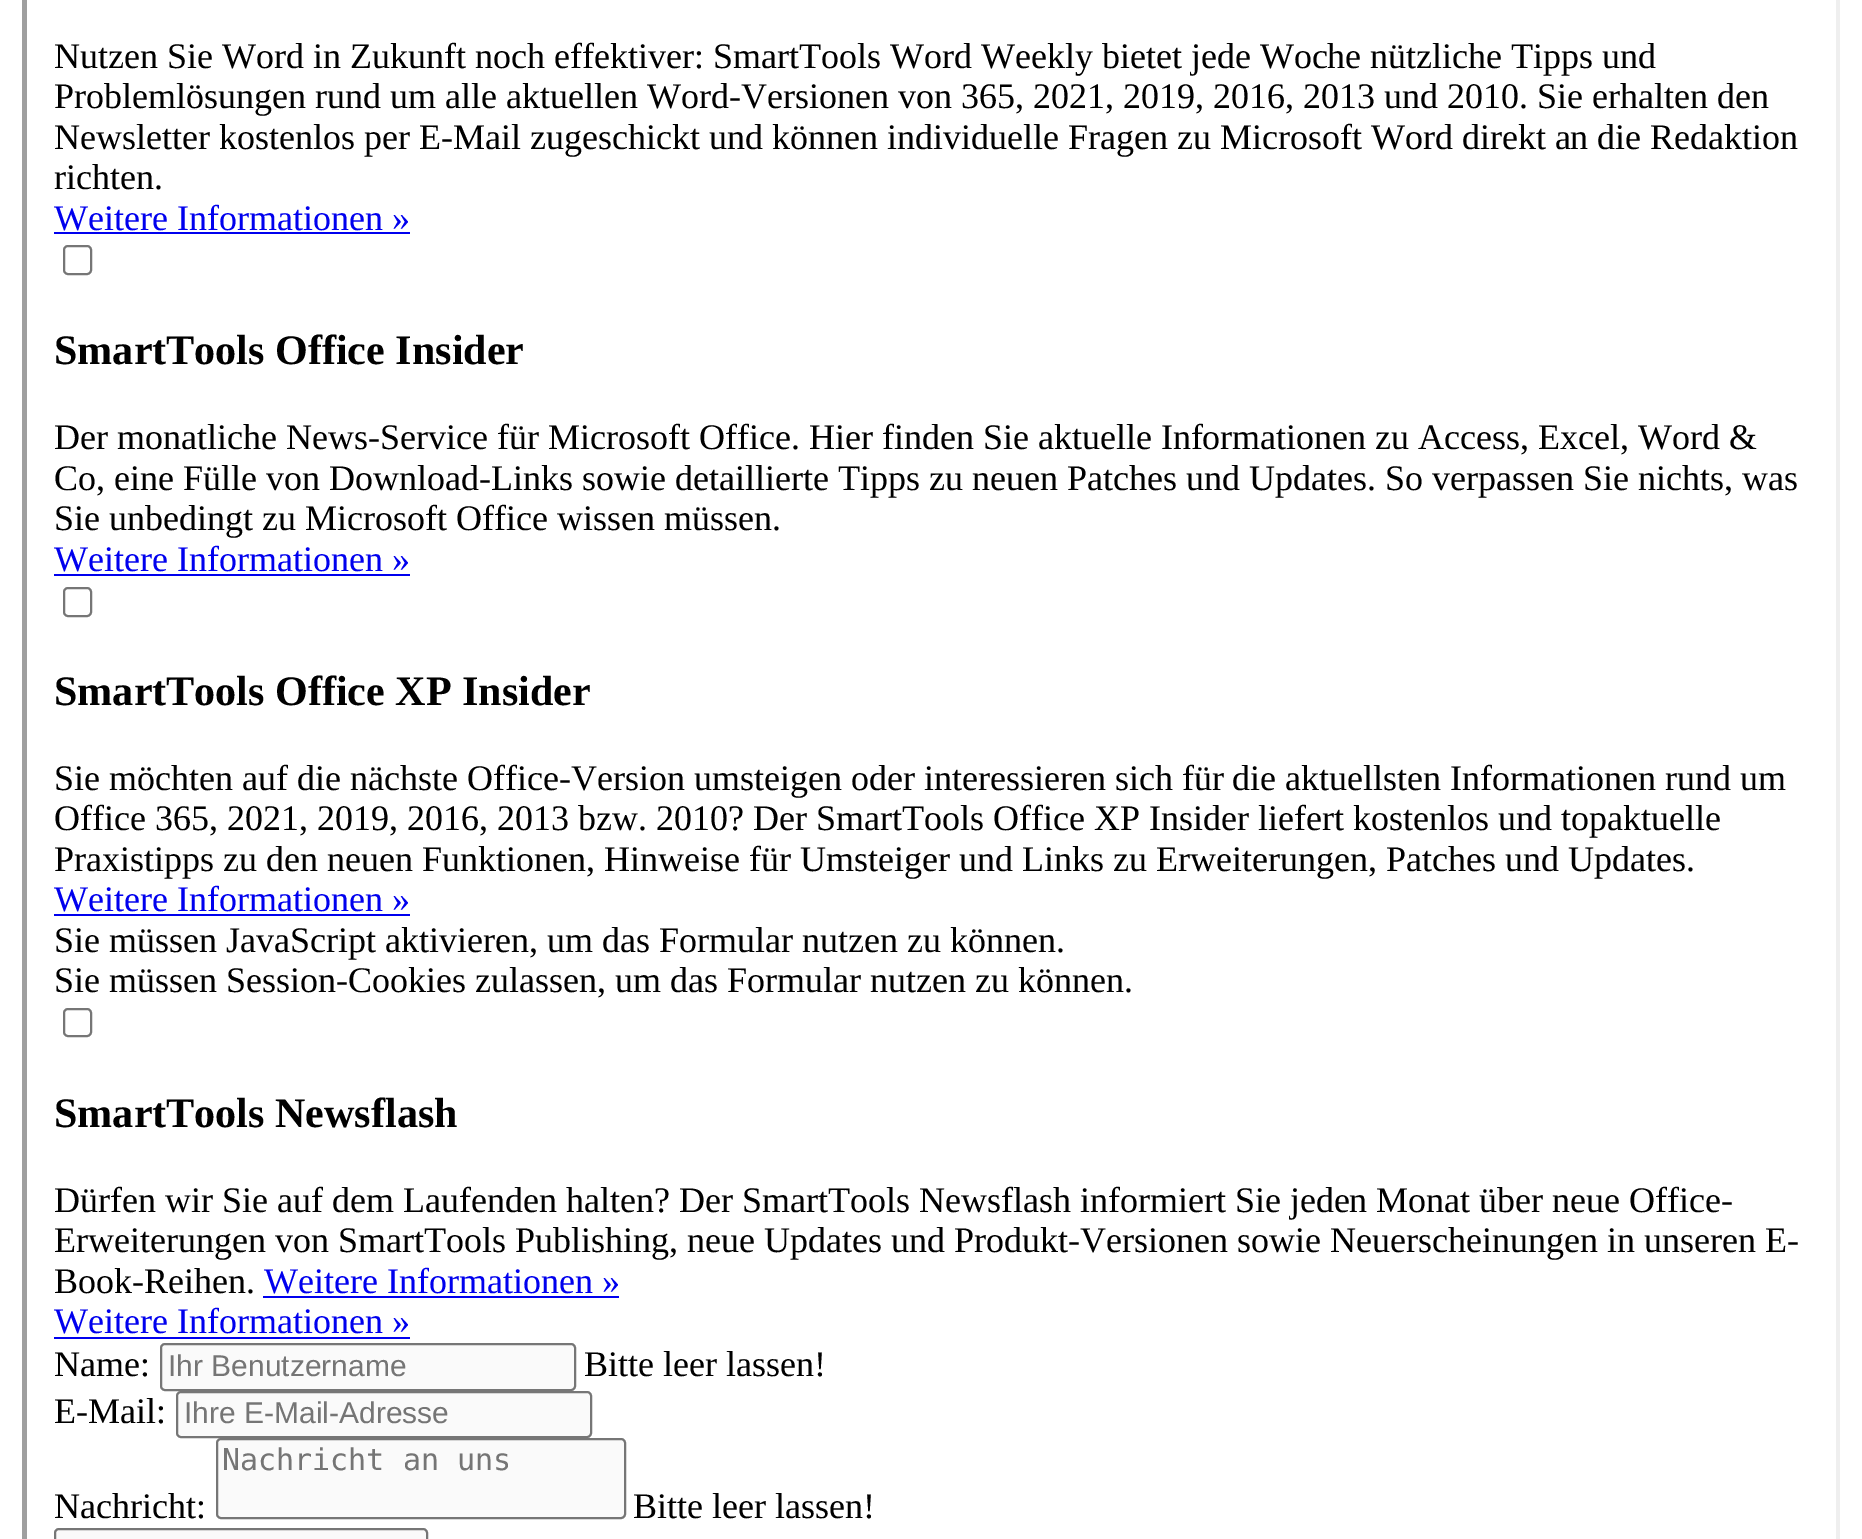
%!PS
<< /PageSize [1862 1539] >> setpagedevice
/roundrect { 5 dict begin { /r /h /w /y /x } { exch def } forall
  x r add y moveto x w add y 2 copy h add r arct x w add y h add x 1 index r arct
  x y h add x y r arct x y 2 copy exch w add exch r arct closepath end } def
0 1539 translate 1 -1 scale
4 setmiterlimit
1 setgray
0 0 1862 1539 rectfill
0.937 setgray
newpath 1840 -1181 moveto 1840 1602 lineto 1836 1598 lineto 1836 -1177 lineto closepath fill
0.624 setgray
newpath 22 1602 moveto 22 -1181 lineto 27 -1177 lineto 27 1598 lineto closepath fill
/LiberationSerif-Regular [36 0 0 -36 0 0] selectfont
0 setgray
54 68 moveto (Nutzen Sie Word in Zukunft noch effektiver: SmartTools Word Weekly bietet jede Woche nützliche Tipps und) show
54 108 moveto (Problemlösungen rund um alle aktuellen Word-Versionen von 365, 2021, 2019, 2016, 2013 und 2010. Sie erhalten den) show
54 149 moveto (Newsletter kostenlos per E-Mail zugeschickt und können individuelle Fragen zu Microsoft Word direkt an die Redaktion) show
54 189 moveto (richten.) show
0 0 0.933 setrgbcolor
54 230 moveto (Weitere Informationen ») show
54 232 356 2 rectfill
0.463 setgray
2 setlinewidth
64 246 27 28 4 roundrect stroke
/LiberationSerif-Bold [42.1 0 0 -42.1 0 0] selectfont
0 setgray
54 364 moveto (SmartTools Office Insider) show
/LiberationSerif-Regular [36 0 0 -36 0 0] selectfont
54 449 moveto (Der monatliche News-Service für Microsoft Office. Hier finden Sie aktuelle Informationen zu Access, Excel, Word &) show
54 490 moveto (Co, eine Fülle von Download-Links sowie detaillierte Tipps zu neuen Patches und Updates. So verpassen Sie nichts, was) show
54 530 moveto (Sie unbedingt zu Microsoft Office wissen müssen.) show
0 0 0.933 setrgbcolor
54 571 moveto (Weitere Informationen ») show
54 574 356 2 rectfill
0.463 setgray
64 588 27 28 4 roundrect stroke
/LiberationSerif-Bold [42.1 0 0 -42.1 0 0] selectfont
0 setgray
54 705 moveto (SmartTools Office XP Insider) show
/LiberationSerif-Regular [36 0 0 -36 0 0] selectfont
54 790 moveto (Sie möchten auf die nächste Office-Version umsteigen oder interessieren sich für die aktuellsten Informationen rund um) show
54 830 moveto (Office 365, 2021, 2019, 2016, 2013 bzw. 2010? Der SmartTools Office XP Insider liefert kostenlos und topaktuelle) show
54 871 moveto (Praxistipps zu den neuen Funktionen, Hinweise für Umsteiger und Links zu Erweiterungen, Patches und Updates.) show
0 0 0.933 setrgbcolor
54 911 moveto (Weitere Informationen ») show
54 914 356 2 rectfill
0 setgray
54 952 moveto (Sie müssen JavaScript aktivieren, um das Formular nutzen zu können.) show
54 992 moveto (Sie müssen Session-Cookies zulassen, um das Formular nutzen zu können.) show
0.463 setgray
64 1009 27 27 4 roundrect stroke
/LiberationSerif-Bold [42.1 0 0 -42.1 0 0] selectfont
0 setgray
54 1127 moveto (SmartTools Newsflash) show
/LiberationSerif-Regular [36 0 0 -36 0 0] selectfont
54 1212 moveto (Dürfen wir Sie auf dem Laufenden halten? Der SmartTools Newsflash informiert Sie jeden Monat über neue Office-) show
54 1252 moveto (Erweiterungen von SmartTools Publishing, neue Updates und Produkt-Versionen sowie Neuerscheinungen in unseren E-) show
54 1293 moveto (Book-Reihen.) show
0 0 0.933 setrgbcolor
264 1293 moveto (Weitere Informationen ») show
263 1296 356 2 rectfill
54 1333 moveto (Weitere Informationen ») show
54 1337 356 2 rectfill
0 setgray
54 1376 moveto (Name:) show
0.98 setgray
161 1344 414 46 4 roundrect gsave fill grestore
0.463 setgray
stroke
/LiberationSans-Regular [30 0 0 -30 0 0] selectfont
0.459 setgray
168 1376 moveto (Ihr Benutzername) show
/LiberationSerif-Regular [36 0 0 -36 0 0] selectfont
0 setgray
584 1376 moveto (Bitte leer lassen!) show
54 1423 moveto (E-Mail:) show
0.98 setgray
177 1392 414 45 4 roundrect gsave fill grestore
0.463 setgray
stroke
/LiberationSans-Regular [30 0 0 -30 0 0] selectfont
0.459 setgray
184 1423 moveto (Ihre E-Mail-Adresse) show
0.98 setgray
217 1439 408 79 4 roundrect gsave fill grestore
0.463 setgray
stroke
/DejaVuSansMono-Regular [30 0 0 -30 0 0] selectfont
0.459 setgray
222 1470 moveto (Nachricht an uns) show
/LiberationSerif-Regular [36 0 0 -36 0 0] selectfont
0 setgray
54 1518 moveto (Nachricht:) show
633 1518 moveto (Bitte leer lassen!) show
0.98 setgray
55 1529 372 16 4 roundrect gsave fill grestore
0.463 setgray
stroke
showpage
